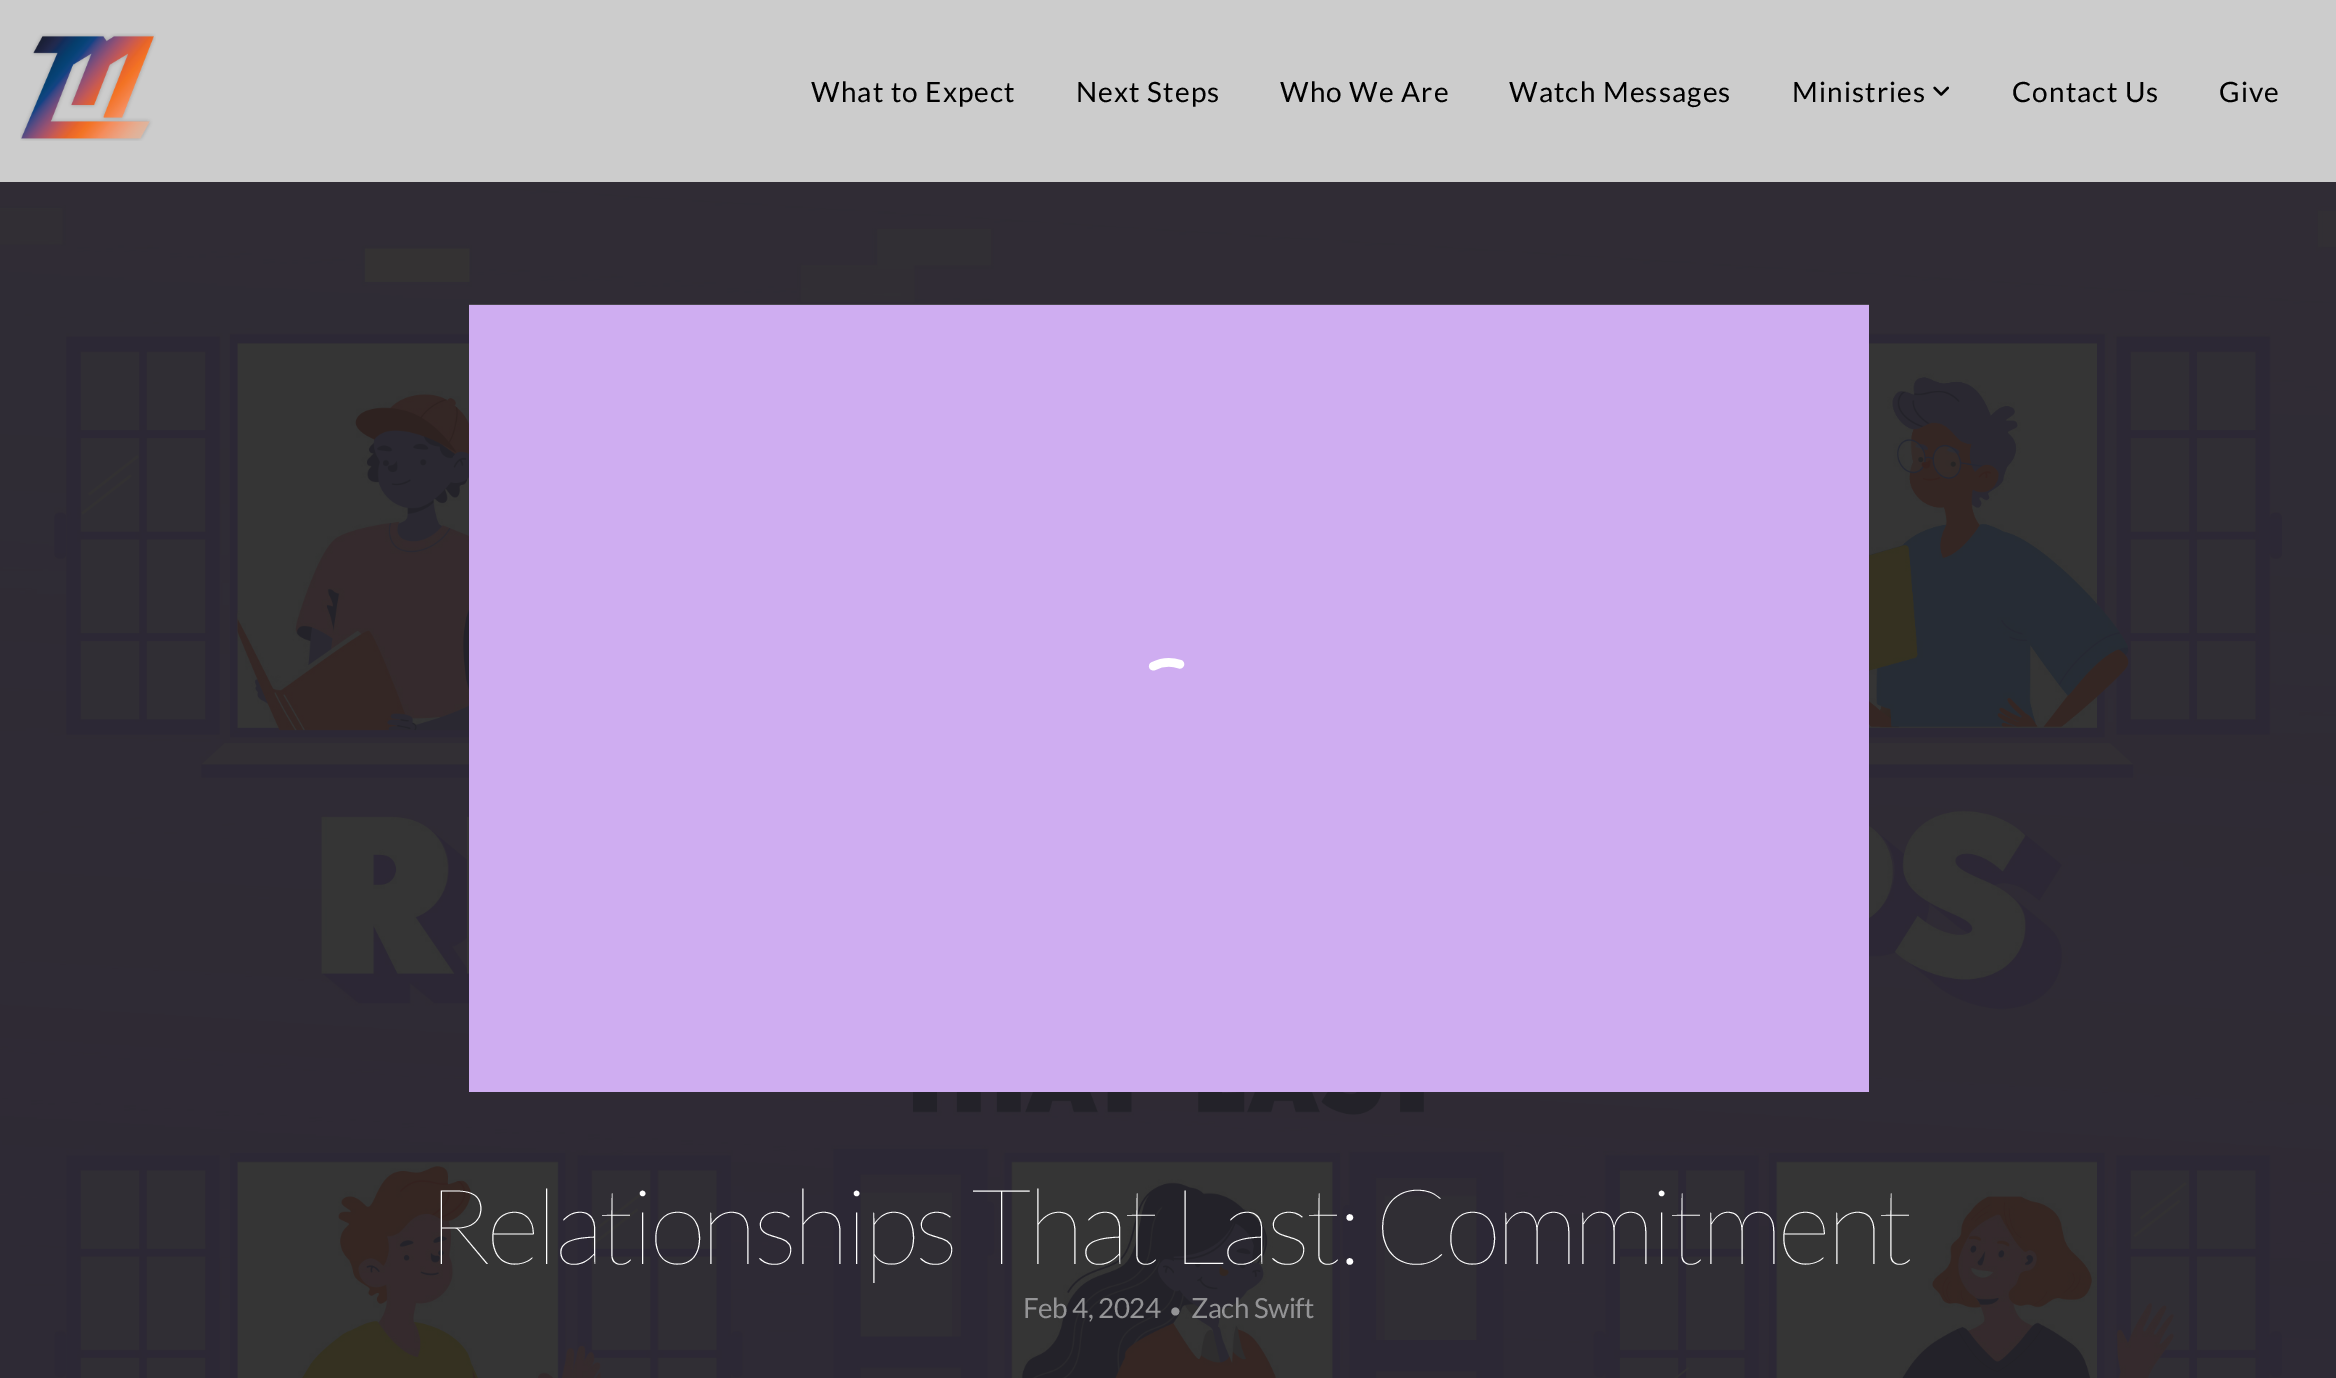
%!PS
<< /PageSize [2336 1378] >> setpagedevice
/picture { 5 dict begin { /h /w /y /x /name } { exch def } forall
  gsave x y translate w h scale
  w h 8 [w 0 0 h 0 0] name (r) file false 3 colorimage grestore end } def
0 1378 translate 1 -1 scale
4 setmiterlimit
0.8 setgray
0 0 2336 1378 rectfill
(img1.rgb) 20 33 136 108 picture
/Lato-Regular [28 0 0 -28 0 0] selectfont
0 setgray
811 102 moveto 1.1 0 (What to Expect) ashow
1076 102 moveto 1.1 0 (Next Steps) ashow
1280 102 moveto 1.1 0 (Who We Are) ashow
1509 102 moveto 1.1 0 (Watch Messages) ashow
1792 102 moveto 1.1 0 (Ministries) ashow
(img2.rgb) 1933 86 16 10 picture
2012 102 moveto 1.1 0 (Contact Us) ashow
2219 102 moveto 1.1 0 (Give) ashow
(img3.rgb) 0 182 2336 1196 picture
(img4.rgb) 469 304 1400 788 picture
/Lato-Thin [105 0 0 -105 0 0] selectfont
1 setgray
426 1264 moveto -4.2 0 (Relationships That Last: Commitment) ashow
/Lato-Regular [27.75 0 0 -27.75 0 0] selectfont
0.58 0.58 0.588 setrgbcolor
1023 1318 moveto -0.5 0 (Feb 4, 2024) ashow
/Lato-Regular [22 0 0 -22 0 0] selectfont
1169 1318 moveto -0.5 0 (•) ashow
/Lato-Regular [27.75 0 0 -27.75 0 0] selectfont
1191 1318 moveto -0.5 0 (Zach Swift) ashow
showpage
